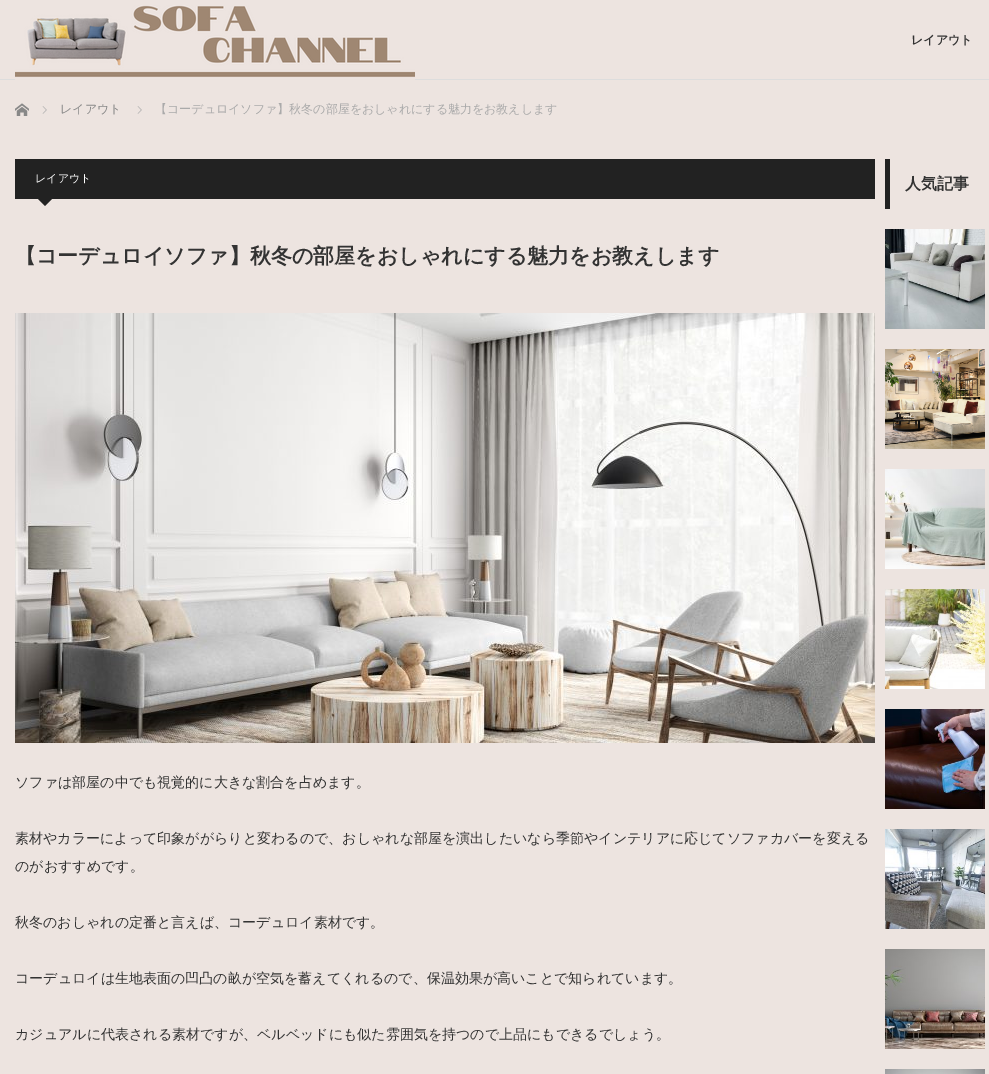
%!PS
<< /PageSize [989 1074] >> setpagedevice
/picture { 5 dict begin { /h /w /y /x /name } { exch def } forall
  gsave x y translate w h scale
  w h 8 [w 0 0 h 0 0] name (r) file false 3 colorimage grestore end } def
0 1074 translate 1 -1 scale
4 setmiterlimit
0.929 0.894 0.878 setrgbcolor
0 0 989 1074 rectfill
0.867 setgray
0 79 989 1 rectfill
(img1.rgb) 15 5 400 75 picture
/WenQuanYiZenHei-Bold [12 0 0 -12 0 0] selectfont
0.2 setgray
911 44 moveto (レイアウト) show
(img2.rgb) 15 103 14 13 picture
(img3.rgb) 42 106 5 8 picture
/WenQuanYiZenHei-Medium [12 0 0 -12 0 0] selectfont
0.533 setgray
60 113 moveto (レイアウト) show
(img3.rgb) 137 106 5 8 picture
0.667 setgray
155 113 moveto (【コーデュロイソファ】秋冬の部屋をおしゃれにする魅力をお教えします) show
0.133 setgray
15 159 860 40 rectfill
/WenQuanYiZenHei-Medium [11 0 0 -11 0 0] selectfont
1 setgray
35 182 moveto (レイアウト) show
0.133 setgray
newpath 35 196 moveto 55 196 lineto 45 206 lineto closepath fill
/WenQuanYiZenHei-Bold [21 0 0 -21 0 0] selectfont
0.2 setgray
15 263 moveto (【コーデュロイソファ】秋冬の部屋をおしゃれにする魅力をお教えします) show
(img4.rgb) 15 313 860 430 picture
/WenQuanYiZenHei-Medium [14 0 0 -14 0 0] selectfont
15 787 moveto (ソファは部屋の中でも視覚的に大きな割合を占めます。) show
15 843 moveto (素材やカラーによって印象ががらりと変わるので、おしゃれな部屋を演出したいなら季節やインテリアに応じてソファカバーを変える) show
15 871 moveto (のがおすすめです。) show
15 927 moveto (秋冬のおしゃれの定番と言えば、コーデュロイ素材です。) show
15 983 moveto (コーデュロイは生地表面の凹凸の畝が空気を蓄えてくれるので、保温効果が高いことで知られています。) show
15 1039 moveto (カジュアルに代表される素材ですが、ベルベッドにも似た雰囲気を持つので上品にもできるでしょう。) show
0.133 setgray
885 159 5 50 rectfill
/WenQuanYiZenHei-Bold [16 0 0 -16 0 0] selectfont
0.2 setgray
905 189 moveto (人気記事) show
(img5.rgb) 885 229 100 100 picture
(img6.rgb) 885 349 100 100 picture
(img7.rgb) 885 469 100 100 picture
(img8.rgb) 885 589 100 100 picture
(img9.rgb) 885 709 100 100 picture
(img10.rgb) 885 829 100 100 picture
(img11.rgb) 885 949 100 100 picture
(img12.rgb) 885 1069 100 5 picture
showpage
